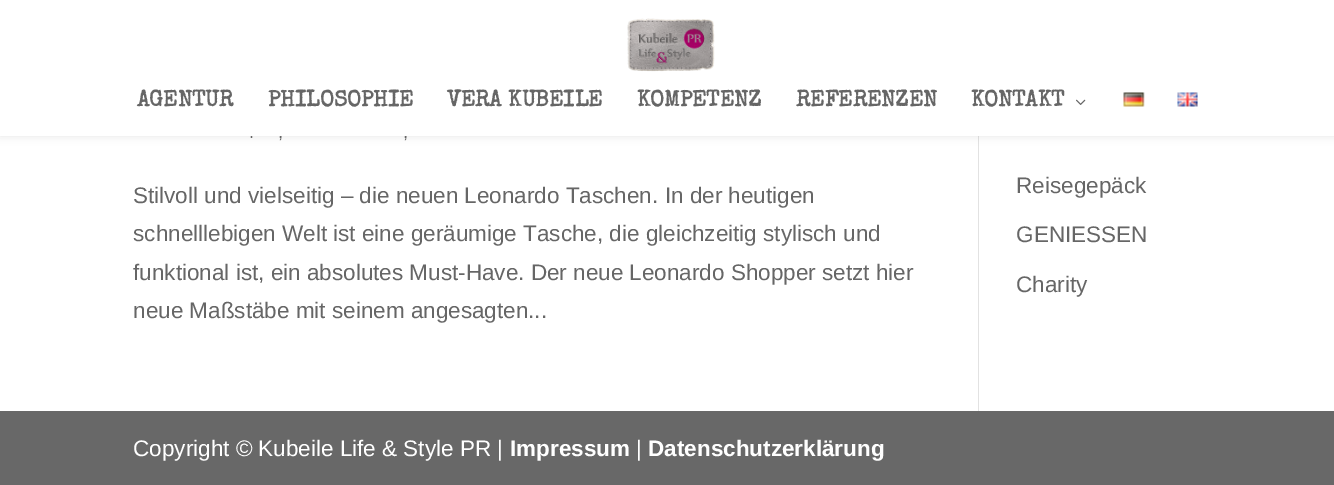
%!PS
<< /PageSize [1334 485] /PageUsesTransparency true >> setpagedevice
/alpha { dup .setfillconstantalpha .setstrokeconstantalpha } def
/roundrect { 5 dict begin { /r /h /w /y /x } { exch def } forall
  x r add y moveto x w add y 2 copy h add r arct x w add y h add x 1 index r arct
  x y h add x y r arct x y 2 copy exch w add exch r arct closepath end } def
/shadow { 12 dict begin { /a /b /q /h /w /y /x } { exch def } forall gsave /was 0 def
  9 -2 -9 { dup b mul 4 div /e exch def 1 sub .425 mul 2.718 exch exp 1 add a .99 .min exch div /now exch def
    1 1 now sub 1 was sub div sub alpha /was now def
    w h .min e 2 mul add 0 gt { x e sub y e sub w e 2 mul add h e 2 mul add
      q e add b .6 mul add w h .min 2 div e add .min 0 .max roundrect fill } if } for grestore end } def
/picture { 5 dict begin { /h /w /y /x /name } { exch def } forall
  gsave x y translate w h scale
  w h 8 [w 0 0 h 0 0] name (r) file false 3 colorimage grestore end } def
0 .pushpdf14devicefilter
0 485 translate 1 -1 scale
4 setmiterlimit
1 setgray
0 0 1334 485 rectfill
0.886 setgray
978 136 1 275 rectfill
0 setgray
0 0 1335 136 0 4.5 0.1 shadow
1 setgray
0 0 1334 136 rectfill
(img1.rgb) 627 18 88 54 picture
/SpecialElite-Bold [22.5 0 0 -22.5 0 0] selectfont
0.4 setgray
137 106 moveto (AGENTUR) show
268 106 moveto (PHILOSOPHIE) show
447 106 moveto (VERA KUBEILE) show
637 106 moveto (KOMPETENZ) show
796 106 moveto (REFERENZEN) show
971 106 moveto (KONTAKT) show
(img2.rgb) 1076 99 10 6 picture
(img3.rgb) 1123 92 22 15 picture
(img4.rgb) 1177 92 21 15 picture
/LiberationSans-Regular [18 0 0 -18 0 0] selectfont
249 138 moveto (.) show
278 138 moveto (,) show
403 138 moveto (,) show
/LiberationSans-Regular [22.5 0 0 -22.5 0 0] selectfont
133 203 moveto (Stilvoll und vielseitig – die neuen Leonardo Taschen. In der heutigen) show
133 241 moveto (schnelllebigen Welt ist eine geräumige Tasche, die gleichzeitig stylisch und) show
133 280 moveto (funktional ist, ein absolutes Must-Have. Der neue Leonardo Shopper setzt hier) show
133 318 moveto (neue Maßstäbe mit seinem angesagten...) show
1016 193 moveto (Reisegepäck) show
1016 242 moveto (GENIESSEN) show
1016 292 moveto (Charity) show
0.408 setgray
0 411 1334 74 rectfill
1 setgray
133 456 moveto (Copyright © Kubeile Life & Style PR |) show
/LiberationSans-Bold [22.5 0 0 -22.5 0 0] selectfont
510 456 moveto (Impressum) show
/LiberationSans-Regular [22.5 0 0 -22.5 0 0] selectfont
636 456 moveto (|) show
/LiberationSans-Bold [22.5 0 0 -22.5 0 0] selectfont
648 456 moveto (Datenschutzerklärung) show
.poppdf14devicefilter showpage
